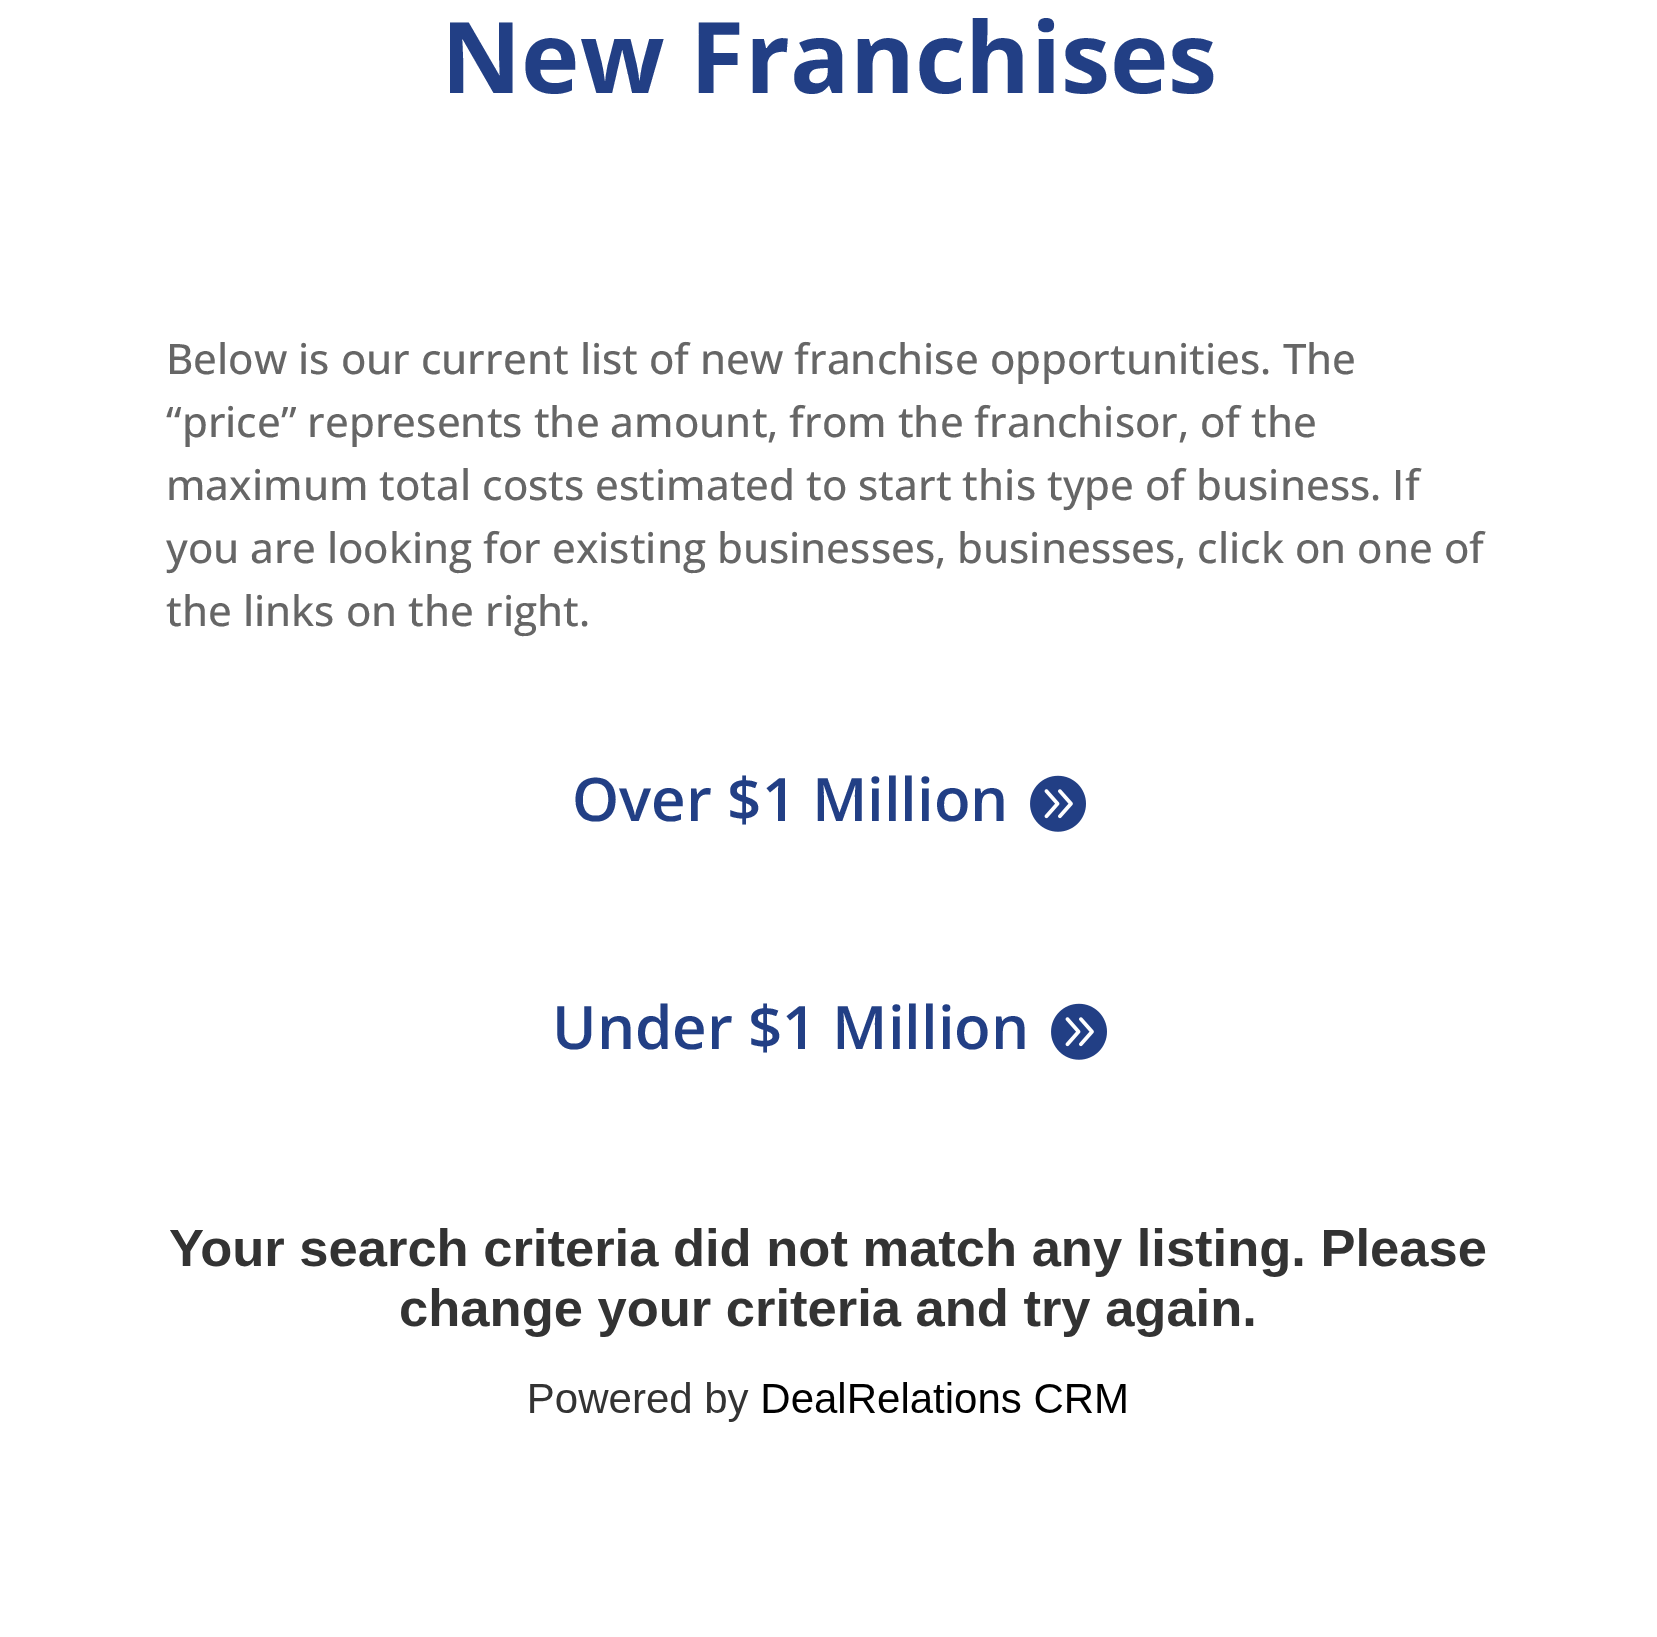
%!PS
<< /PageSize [1657 1637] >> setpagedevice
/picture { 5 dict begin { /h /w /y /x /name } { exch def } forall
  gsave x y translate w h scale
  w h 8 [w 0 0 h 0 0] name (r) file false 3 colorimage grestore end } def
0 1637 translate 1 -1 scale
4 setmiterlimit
1 setgray
0 0 1657 1637 rectfill
/OpenSans-Bold [99 0 0 -99 0 0] selectfont
0.133 0.247 0.522 setrgbcolor
441 93 moveto (New Franchises) show
/OpenSans-Medium [42 0 0 -42 0 0] selectfont
0.4 setgray
166 374 moveto (Below is our current list of new franchise opportunities. The) show
166 437 moveto (“price” represents the amount, from the franchisor, of the) show
166 500 moveto (maximum total costs estimated to start this type of business. If) show
166 563 moveto (you are looking for existing businesses, businesses, click on one of) show
166 626 moveto (the links on the right.) show
/OpenSans-SemiBold [60 0 0 -60 0 0] selectfont
0.133 0.247 0.522 setrgbcolor
572 821 moveto (Over $1 Million) show
(img1.rgb) 1030 775 56 57 picture
552 1049 moveto (Under $1 Million) show
(img1.rgb) 1051 1003 56 57 picture
(img2.rgb) 170 1228 1316 194 picture
showpage
